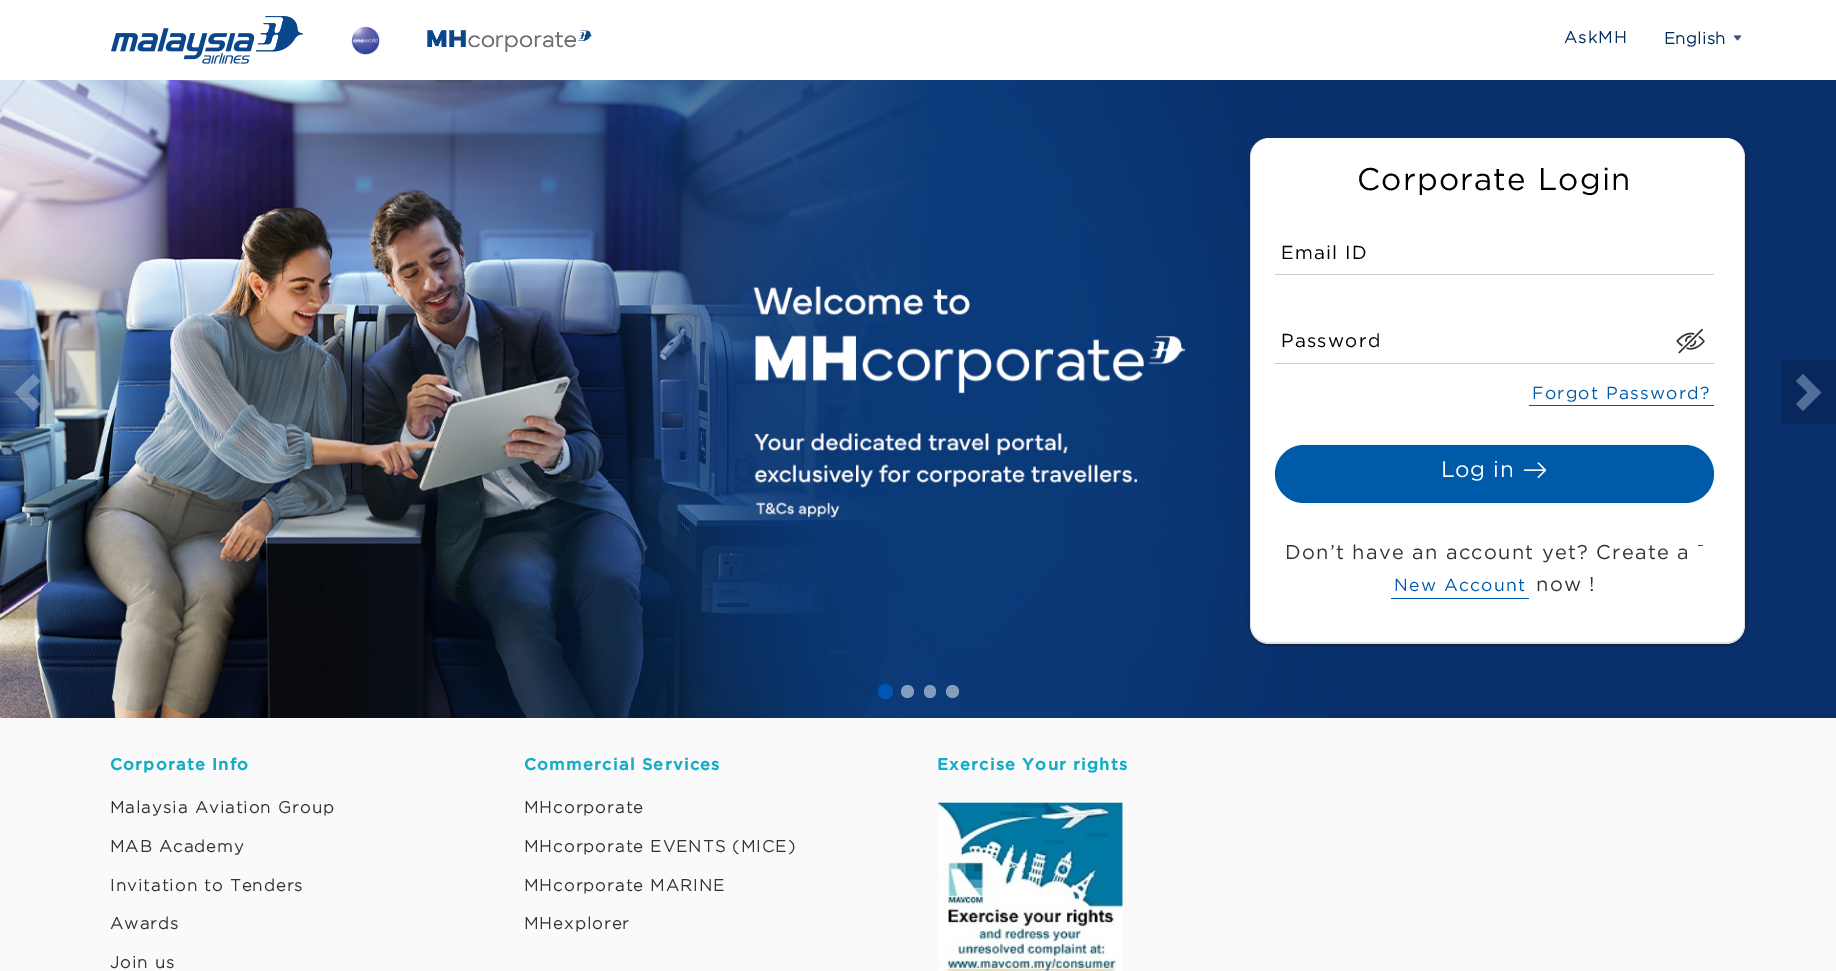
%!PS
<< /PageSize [1836 971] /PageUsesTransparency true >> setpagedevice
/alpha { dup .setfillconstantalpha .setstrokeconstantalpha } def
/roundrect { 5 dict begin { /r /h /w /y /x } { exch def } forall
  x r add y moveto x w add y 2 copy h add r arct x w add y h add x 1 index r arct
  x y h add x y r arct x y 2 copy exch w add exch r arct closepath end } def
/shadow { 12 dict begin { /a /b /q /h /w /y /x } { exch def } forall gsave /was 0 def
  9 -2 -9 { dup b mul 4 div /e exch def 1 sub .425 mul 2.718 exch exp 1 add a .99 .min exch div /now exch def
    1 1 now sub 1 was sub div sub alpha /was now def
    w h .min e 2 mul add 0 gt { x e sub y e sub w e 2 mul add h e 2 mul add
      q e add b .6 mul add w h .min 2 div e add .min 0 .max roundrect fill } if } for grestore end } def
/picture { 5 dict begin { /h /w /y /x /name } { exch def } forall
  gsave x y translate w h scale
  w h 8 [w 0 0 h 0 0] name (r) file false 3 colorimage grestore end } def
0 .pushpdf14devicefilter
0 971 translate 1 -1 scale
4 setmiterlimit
0.98 setgray
0 0 1836 971 rectfill
1 setgray
0 0 1836 80 rectfill
(img1.rgb) 111 16 192 48 picture
(img2.rgb) 351 26 29 29 picture
(img3.rgb) 427 30 165 23 picture
/Gotham-Bold [16.4 0 0 -16.4 0 0] selectfont
0 0.169 0.361 setrgbcolor
1564 43 moveto 1.25 0 (AskMH) ashow
1664 44 moveto 0.5 0 (English) ashow
(img4.rgb) 1733 35 9 6 picture
(img5.rgb) 0 80 1836 638 picture
0.15 alpha
0 setgray
0 360 55 64 rectfill
0.3 alpha
1 setgray
newpath 33.5 374 moveto 14.5 392.5 lineto 33.5 411 lineto 40.5 404 lineto 28.5 392.5 lineto 40.5 381 lineto closepath fill
1 alpha
0.031 0.157 0.365 setrgbcolor
1781 360 55 64 rectfill
0.325 0.427 0.6 setrgbcolor
newpath 1803 374 moveto 1796 381 lineto 1807.5 392.5 lineto 1796 404 lineto 1803 411 lineto 1821.5 392.5 lineto closepath fill
0 0.337 0.702 setrgbcolor
newpath 885.5 691.5 7.5 0 360 arc closepath fill
0.522 0.616 0.737 setrgbcolor
newpath 907.5 691.5 6.5 0 360 arc closepath fill
924 685 12 13 6 roundrect fill
0.522 0.612 0.733 setrgbcolor
newpath 952.5 691.5 6.5 0 360 arc closepath fill
0 setgray
1250 139 495 506 19 3 0.2 shadow
1253 144 490 501 16 0.5 0.12 shadow
1250 140 495 506 19 1 0.14 shadow
1 setgray
1250 138 495 506 19 roundrect fill
0.12 alpha
0 setgray
newpath 1269 138 moveto 1726 138 lineto 1737 138 1745 146 1745 156 curveto 1745 625 lineto 1745 635 1737 644 1726 644 curveto 1269 644 lineto 1258 644 1250 635 1250 625 curveto 1250 156 lineto 1250 146 1258 138 1269 138 curveto closepath 1269 138 moveto 1726 138 lineto 1736 138 1744 146 1744 156 curveto 1744 625 lineto 1744 635 1736 642 1726 642 curveto 1269 642 lineto 1259 642 1251 635 1251 625 curveto 1251 156 lineto 1251 146 1259 138 1269 138 curveto closepath eofill
/Gotham-Regular [31.25 0 0 -31.25 0 0] selectfont
1 alpha
1357 190 moveto 1.25 0 (Corporate Login) ashow
/Gotham-Regular [18.75 0 0 -18.75 0 0] selectfont
1281 259 moveto 1.25 0 (Email ID) ashow
0.8 setgray
1275 274 439 1 rectfill
0 setgray
1281 347 moveto 1.25 0 (Password) ashow
(img6.rgb) 1676 328 29 26 picture
0.8 setgray
1275 363 439 1 rectfill
0 0.353 0.667 setrgbcolor
1529 405 185 1 rectfill
/Gotham-Regular [17.5 0 0 -17.5 0 0] selectfont
1532 399 moveto 1.25 0 (Forgot Password?) ashow
1275 445 439 58 29 roundrect fill
/Gotham-Regular [22.5 0 0 -22.5 0 0] selectfont
1 setgray
1441 477 moveto 0.5 0 (Log in) ashow
(img7.rgb) 1523 462 24 16 picture
/Gotham-Regular [20 0 0 -20 0 0] selectfont
0.2 setgray
1285 559 moveto 1.25 0 (Don’t have an account yet? Create a) ashow
0 0.353 0.667 setrgbcolor
1698 545 5 1 rectfill
1391 598 138 1 rectfill
/Gotham-Regular [17.5 0 0 -17.5 0 0] selectfont
1394 591 moveto 1.25 0 (New Account) ashow
/Gotham-Regular [20 0 0 -20 0 0] selectfont
0.2 setgray
1536 591 moveto 1.25 0 (now !) ashow
/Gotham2-Bold [16.4 0 0 -16.4 0 0] selectfont
0.075 0.678 0.773 setrgbcolor
110 770 moveto 1.25 0 (Corporate Info) ashow
/Gotham-Bold [16.4 0 0 -16.4 0 0] selectfont
0.2 setgray
110 813 moveto 1.25 0 (Malaysia Aviation Group) ashow
110 852 moveto 1.25 0 (MAB Academy) ashow
110 891 moveto 1.25 0 (Invitation to Tenders) ashow
110 929 moveto 1.25 0 (Awards) ashow
110 968 moveto 1.25 0 (Join us) ashow
/Gotham2-Bold [16.4 0 0 -16.4 0 0] selectfont
0.075 0.678 0.773 setrgbcolor
524 770 moveto 1.25 0 (Commercial Services) ashow
/Gotham-Bold [16.4 0 0 -16.4 0 0] selectfont
0.2 setgray
524 813 moveto 1.25 0 (MHcorporate) ashow
524 852 moveto 1.25 0 (MHcorporate EVENTS \(MICE\)) ashow
524 891 moveto 1.25 0 (MHcorporate MARINE) ashow
524 929 moveto 1.25 0 (MHexplorer) ashow
/Gotham2-Bold [16.4 0 0 -16.4 0 0] selectfont
0.075 0.678 0.773 setrgbcolor
937 770 moveto 1.25 0 (Exercise Your rights) ashow
(img8.rgb) 938 802 185 169 picture
.poppdf14devicefilter showpage
